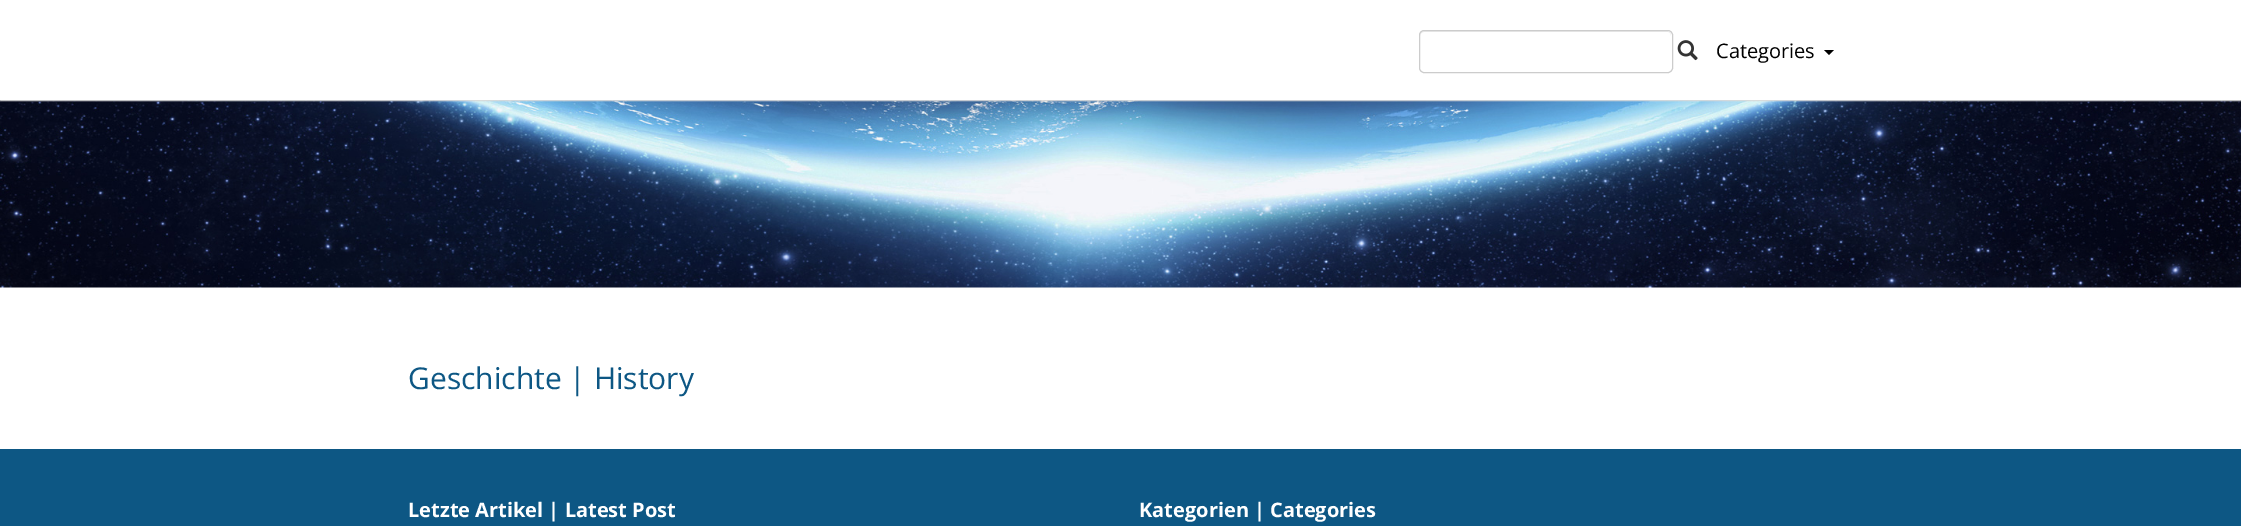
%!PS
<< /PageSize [2241 526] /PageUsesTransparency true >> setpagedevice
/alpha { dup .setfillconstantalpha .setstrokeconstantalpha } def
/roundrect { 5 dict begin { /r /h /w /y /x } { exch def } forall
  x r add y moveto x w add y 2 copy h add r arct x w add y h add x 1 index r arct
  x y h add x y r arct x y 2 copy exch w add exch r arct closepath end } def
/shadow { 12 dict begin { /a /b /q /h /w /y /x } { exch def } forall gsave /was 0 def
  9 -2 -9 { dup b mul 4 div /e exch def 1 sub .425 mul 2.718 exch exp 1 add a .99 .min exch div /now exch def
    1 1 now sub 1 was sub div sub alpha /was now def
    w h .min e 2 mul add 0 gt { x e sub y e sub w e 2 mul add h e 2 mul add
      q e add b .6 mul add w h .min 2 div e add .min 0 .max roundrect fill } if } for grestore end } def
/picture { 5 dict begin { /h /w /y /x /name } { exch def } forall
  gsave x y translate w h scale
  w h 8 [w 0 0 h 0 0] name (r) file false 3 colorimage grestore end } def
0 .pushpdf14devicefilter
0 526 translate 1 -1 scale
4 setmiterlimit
1 setgray
0 0 2241 526 rectfill
(img2.rgb) 0 100 2241 188 picture
gsave
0 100 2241 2 rectclip
0.851 setgray
0 1 2241 100 0 0.5 1 shadow
grestore
0.925 setgray
newpath 1424 32 moveto 1668 32 lineto 1670 32 1671 34 1671 36 curveto 1671 35 lineto 1671 33 1669 31 1667 31 curveto 1424 31 lineto 1422 31 1420 33 1420 35 curveto 1420 36 lineto 1420 34 1422 32 1424 32 curveto closepath fill
0.8 setgray
1419.5 30.5 253 42 4.5 roundrect stroke
(img1.rgb) 1677 40 21 21 picture
/OpenSans-Regular [20 0 0 -20 0 0] selectfont
0 setgray
1716 58 moveto (Categories) show
newpath 1824 50 moveto 1834 50 lineto 1829 55 lineto closepath fill
/OpenSans-Regular [30 0 0 -30 0 0] selectfont
0.051 0.341 0.518 setrgbcolor
408 389 moveto (Geschichte | History) show
0 449 2241 77 rectfill
/OpenSans-Bold [20 0 0 -20 0 0] selectfont
1 setgray
408 517 moveto (Letzte Artikel | Latest Post) show
1139 517 moveto (Kategorien | Categories) show
.poppdf14devicefilter showpage
